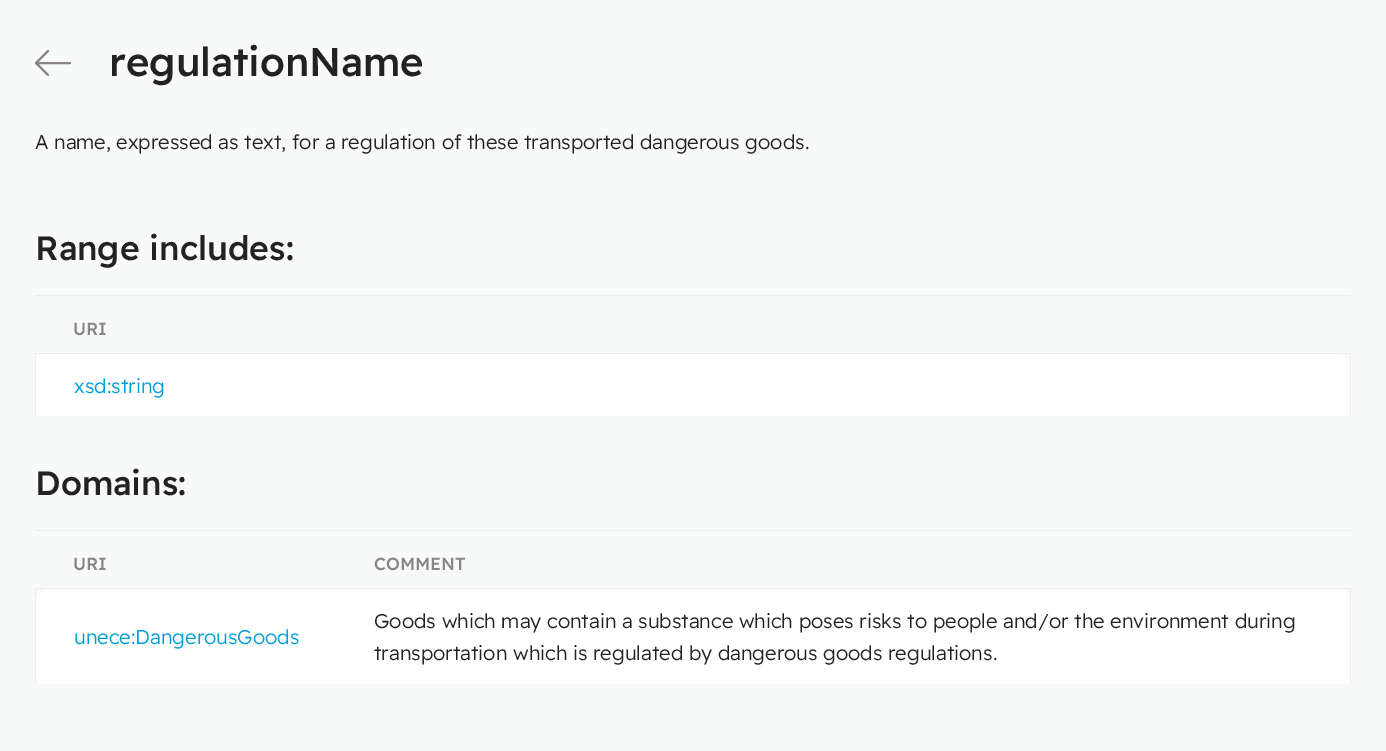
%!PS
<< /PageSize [1386 751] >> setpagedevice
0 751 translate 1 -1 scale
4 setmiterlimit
0.973 0.976 0.976 setrgbcolor
0 0 1386 751 rectfill
0.533 0.522 0.514 setrgbcolor
2 setlinewidth
1 setlinecap
1 setlinejoin
newpath 70 63 moveto 36 63 lineto 48 75 moveto 36 63 lineto 48 51 lineto stroke
/ReadexPro-Medium [40 0 0 -40 0 0] selectfont
0.137 0.133 0.129 setrgbcolor
109 76 moveto (regulationName) show
/ReadexPro-Light [20 0 0 -20 0 0] selectfont
35 149 moveto (A name, expressed as text, for a regulation of these transported dangerous goods.) show
/ReadexPro-Medium [33.75 0 0 -33.75 0 0] selectfont
35 260 moveto (Range includes:) show
0.929 setgray
35 295 1316 1 rectfill
/ReadexPro-Medium [17.5 0 0 -17.5 0 0] selectfont
0.533 0.522 0.514 setrgbcolor
73 335 moveto (URI) show
1 setgray
newpath 36 354 moveto 1338 354 lineto 1345 354 1351 360 1351 367 curveto 1351 408 lineto 1351 415 1345 421 1338 421 curveto 36 421 lineto closepath fill
0.929 setgray
35 353 1316 1 rectfill
1350 353 1 68 rectfill
35 353 1 68 rectfill
0.973 0.976 0.976 setrgbcolor
35 416 1316 5 rectfill
/ReadexPro-Light [20 0 0 -20 0 0] selectfont
0 0.62 0.859 setrgbcolor
74 393 moveto (xsd:string) show
/ReadexPro-Medium [33.75 0 0 -33.75 0 0] selectfont
0.137 0.133 0.129 setrgbcolor
35 495 moveto (Domains:) show
/ReadexPro-Medium [17.5 0 0 -17.5 0 0] selectfont
0.533 0.522 0.514 setrgbcolor
73 570 moveto (URI) show
0.929 setgray
35 530 1316 1 rectfill
0.533 0.522 0.514 setrgbcolor
374 570 moveto (COMMENT) show
1 setgray
newpath 49 589 moveto 336 589 lineto 336 689 lineto 49 689 lineto 42 689 36 683 36 676 curveto 36 602 lineto 36 595 42 589 49 589 curveto closepath fill
0.929 setgray
35 588 1316 1 rectfill
35 588 1 101 rectfill
1 setgray
newpath 336 589 moveto 1338 589 lineto 1345 589 1351 595 1351 602 curveto 1351 676 lineto 1351 683 1345 689 1338 689 curveto 336 689 lineto closepath fill
0.929 setgray
1350 588 1 101 rectfill
0.973 0.976 0.976 setrgbcolor
35 684 1316 5 rectfill
/ReadexPro-Light [20 0 0 -20 0 0] selectfont
0 0.62 0.859 setrgbcolor
74 644 moveto (unece:DangerousGoods) show
0.137 0.133 0.129 setrgbcolor
374 628 moveto (Goods which may contain a substance which poses risks to people and/or the environment during) show
374 660 moveto (transportation which is regulated by dangerous goods regulations.) show
showpage
